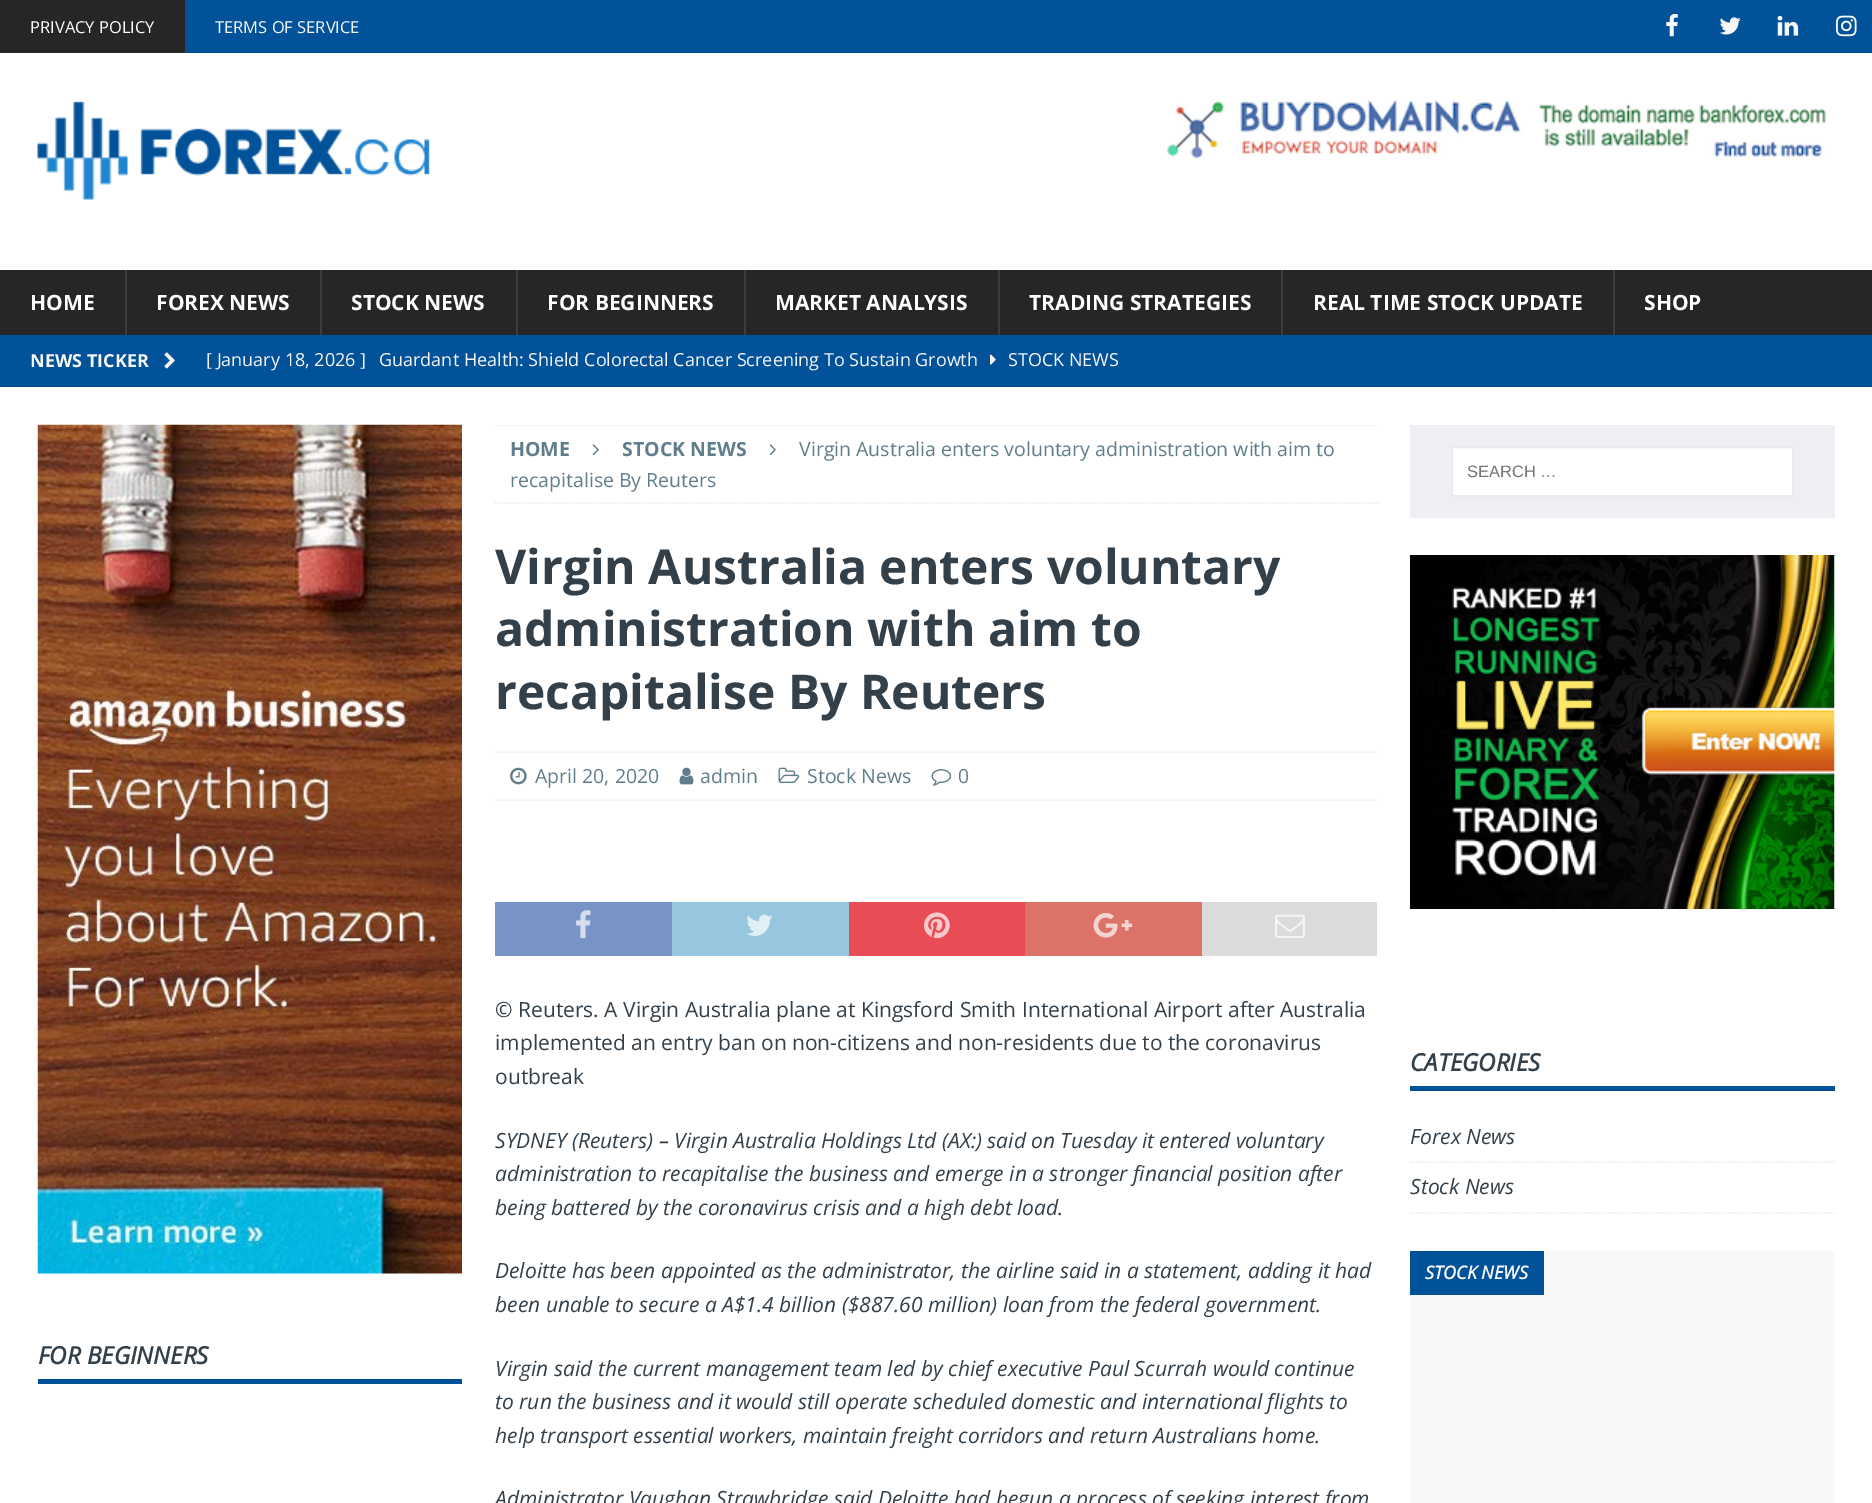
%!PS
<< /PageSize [1872 1503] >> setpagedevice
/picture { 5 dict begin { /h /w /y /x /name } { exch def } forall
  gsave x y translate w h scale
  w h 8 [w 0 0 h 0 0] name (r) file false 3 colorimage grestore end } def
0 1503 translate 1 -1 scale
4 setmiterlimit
0.004 0.322 0.6 setrgbcolor
0 0 1872 1503 rectfill
0.149 setgray
0 0 185 53 rectfill
/OpenSans-Regular [16.5 0 0 -16.5 0 0] selectfont
1 setgray
30 33 moveto (PRIVACY POLICY) show
0.969 setgray
215 33 moveto (TERMS OF SERVICE) show
(img1.rgb) 1666 13 12 24 picture
(img2.rgb) 1719 17 22 18 picture
(img3.rgb) 1777 15 22 21 picture
(img4.rgb) 1836 15 21 22 picture
1 setgray
0 53 1872 217 rectfill
(img5.rgb) 37 101 393 99 picture
(img6.rgb) 1166 99 660 60 picture
0.149 setgray
0 270 1872 65 rectfill
/OpenSans-Bold [21 0 0 -21 0 0] selectfont
1 setgray
30 310 moveto (HOME) show
0.235 setgray
125 270 2 65 rectfill
1 setgray
156 310 moveto (FOREX NEWS) show
0.235 setgray
320 270 2 65 rectfill
1 setgray
351 310 moveto (STOCK NEWS) show
0.235 setgray
516 270 2 65 rectfill
1 setgray
547 310 moveto (FOR BEGINNERS) show
0.235 setgray
744 270 2 65 rectfill
1 setgray
775 310 moveto (MARKET ANALYSIS) show
0.235 setgray
998 270 2 65 rectfill
1 setgray
1029 310 moveto (TRADING STRATEGIES) show
0.235 setgray
1281 270 2 65 rectfill
1 setgray
1313 310 moveto (REAL TIME STOCK UPDATE) show
0.235 setgray
1613 270 2 65 rectfill
1 setgray
1644 310 moveto (SHOP) show
/OpenSans-Bold [18 0 0 -18 0 0] selectfont
0.969 setgray
30 367 moveto (NEWS TICKER) show
(img7.rgb) 164 352 11 17 picture
/OpenSans-Regular [18 0 0 -18 0 0] selectfont
206 366 moveto ([ January 18, 2026 ]) show
379 366 moveto (Guardant Health: Shield Colorectal Cancer Screening To Sustain Growth) show
(img8.rgb) 990 354 6 11 picture
1008 366 moveto (STOCK NEWS) show
1 setgray
0 387 1872 1116 rectfill
(img9.rgb) 37 424 425 850 picture
0.004 0.322 0.6 setrgbcolor
38 1379 424 5 rectfill
/OpenSans-BoldItalic [24 0 0 -24 0 0] selectfont
0.2 0.247 0.286 setrgbcolor
38 1364 moveto (FOR BEGINNERS) show
gsave
495 425 884 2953 rectclip
0.922 setgray
1.5 setlinewidth
[1.5 1.5] 0 setdash
newpath 495 425 moveto 1378.5 425 lineto stroke
grestore
0.922 setgray
1.5 setlinewidth
[1.5 1.5] 0 setdash
newpath 495 503 moveto 1378.5 503 lineto stroke
/OpenSans-Bold [19.5 0 0 -19.5 0 0] selectfont
0.376 0.49 0.545 setrgbcolor
510 456 moveto (HOME) show
(img10.rgb) 592 444 7 12 picture
622 456 moveto (STOCK NEWS) show
(img10.rgb) 769 444 7 12 picture
/OpenSans-Regular [19.5 0 0 -19.5 0 0] selectfont
799 456 moveto (Virgin Australia enters voluntary administration with aim to) show
510 487 moveto (recapitalise By Reuters) show
/OpenSans-Bold [48 0 0 -48 0 0] selectfont
0.2 0.247 0.286 setrgbcolor
495 584 moveto (Virgin Australia enters voluntary) show
495 646 moveto (administration with aim to) show
495 709 moveto (recapitalise By Reuters) show
0.922 setgray
newpath 495 752 moveto 1378.5 752 lineto stroke
newpath 495 800 moveto 1378.5 800 lineto stroke
(img11.rgb) 510 767 17 18 picture
/OpenSans-Regular [19.5 0 0 -19.5 0 0] selectfont
0.376 0.49 0.545 setrgbcolor
535 783 moveto (April 20, 2020) show
(img12.rgb) 679 767 15 18 picture
700 783 moveto (admin) show
(img13.rgb) 778 767 22 16 picture
807 783 moveto (Stock News) show
(img14.rgb) 931 769 20 17 picture
958 783 moveto (0) show
0.471 0.576 0.776 setrgbcolor
495 902 177 54 rectfill
(img15.rgb) 576 910 15 29 picture
0.592 0.776 0.875 setrgbcolor
672 902 177 54 rectfill
(img16.rgb) 746 914 27 22 picture
0.91 0.302 0.337 setrgbcolor
849 902 176 54 rectfill
(img17.rgb) 924 912 26 27 picture
0.863 0.447 0.408 setrgbcolor
1025 902 177 54 rectfill
(img18.rgb) 1093 913 40 25 picture
0.859 setgray
1202 902 175 54 rectfill
(img19.rgb) 1275 914 30 24 picture
/OpenSans-Regular [21 0 0 -21 0 0] selectfont
0.2 0.247 0.286 setrgbcolor
495 1017 moveto (© Reuters. A Virgin Australia plane at Kingsford Smith International Airport after Australia) show
495 1050 moveto (implemented an entry ban on non-citizens and non-residents due to the coronavirus) show
495 1084 moveto (outbreak) show
/OpenSans-Italic [21 0 0 -21 0 0] selectfont
495 1148 moveto (SYDNEY \(Reuters\) – Virgin Australia Holdings Ltd \(AX:\) said on Tuesday it entered voluntary) show
495 1181 moveto (administration to recapitalise the business and emerge in a stronger financial position after) show
495 1215 moveto (being battered by the coronavirus crisis and a high debt load.) show
495 1278 moveto (Deloitte has been appointed as the administrator, the airline said in a statement, adding it had) show
495 1312 moveto (been unable to secure a A$1.4 billion \($887.60 million\) loan from the federal government.) show
495 1376 moveto (Virgin said the current management team led by chief executive Paul Scurrah would continue) show
495 1409 moveto (to run the business and it would still operate scheduled domestic and international flights to) show
495 1443 moveto (help transport essential workers, maintain freight corridors and return Australians home.) show
495 1506 moveto (Administrator Vaughan Strawbridge said Deloitte had begun a process of seeking interest from) show
0.929 0.937 0.957 setrgbcolor
1410 425 425 93 rectfill
1 setgray
newpath 1452 447 moveto 1793 447 lineto 1793 496 lineto 1452 496 lineto closepath gsave fill grestore
0.922 setgray
2 setlinewidth
[] 0 setdash
stroke
/LiberationSans-Regular [16.5 0 0 -16.5 0 0] selectfont
0.459 setgray
1467 477 moveto (SEARCH …) show
(img20.rgb) 1410 555 425 354 picture
0.004 0.322 0.6 setrgbcolor
1410 1086 425 5 rectfill
/OpenSans-BoldItalic [24 0 0 -24 0 0] selectfont
0.2 0.247 0.286 setrgbcolor
1410 1071 moveto (CATEGORIES) show
0.922 setgray
1.5 setlinewidth
[1.5 1.5] 0 setdash
newpath 1410 1162 moveto 1834.5 1162 lineto stroke
/OpenSans-Italic [21 0 0 -21 0 0] selectfont
0.2 0.247 0.286 setrgbcolor
1410 1144 moveto (Forex News) show
0.922 setgray
newpath 1410 1213 moveto 1834.5 1213 lineto stroke
0.2 0.247 0.286 setrgbcolor
1410 1194 moveto (Stock News) show
0.969 setgray
1410 1251 424 252 rectfill
0.004 0.322 0.6 setrgbcolor
1410 1251 134 44 rectfill
/OpenSans-BoldItalic [18 0 0 -18 0 0] selectfont
0.969 setgray
1425 1279 moveto (STOCK NEWS) show
showpage
